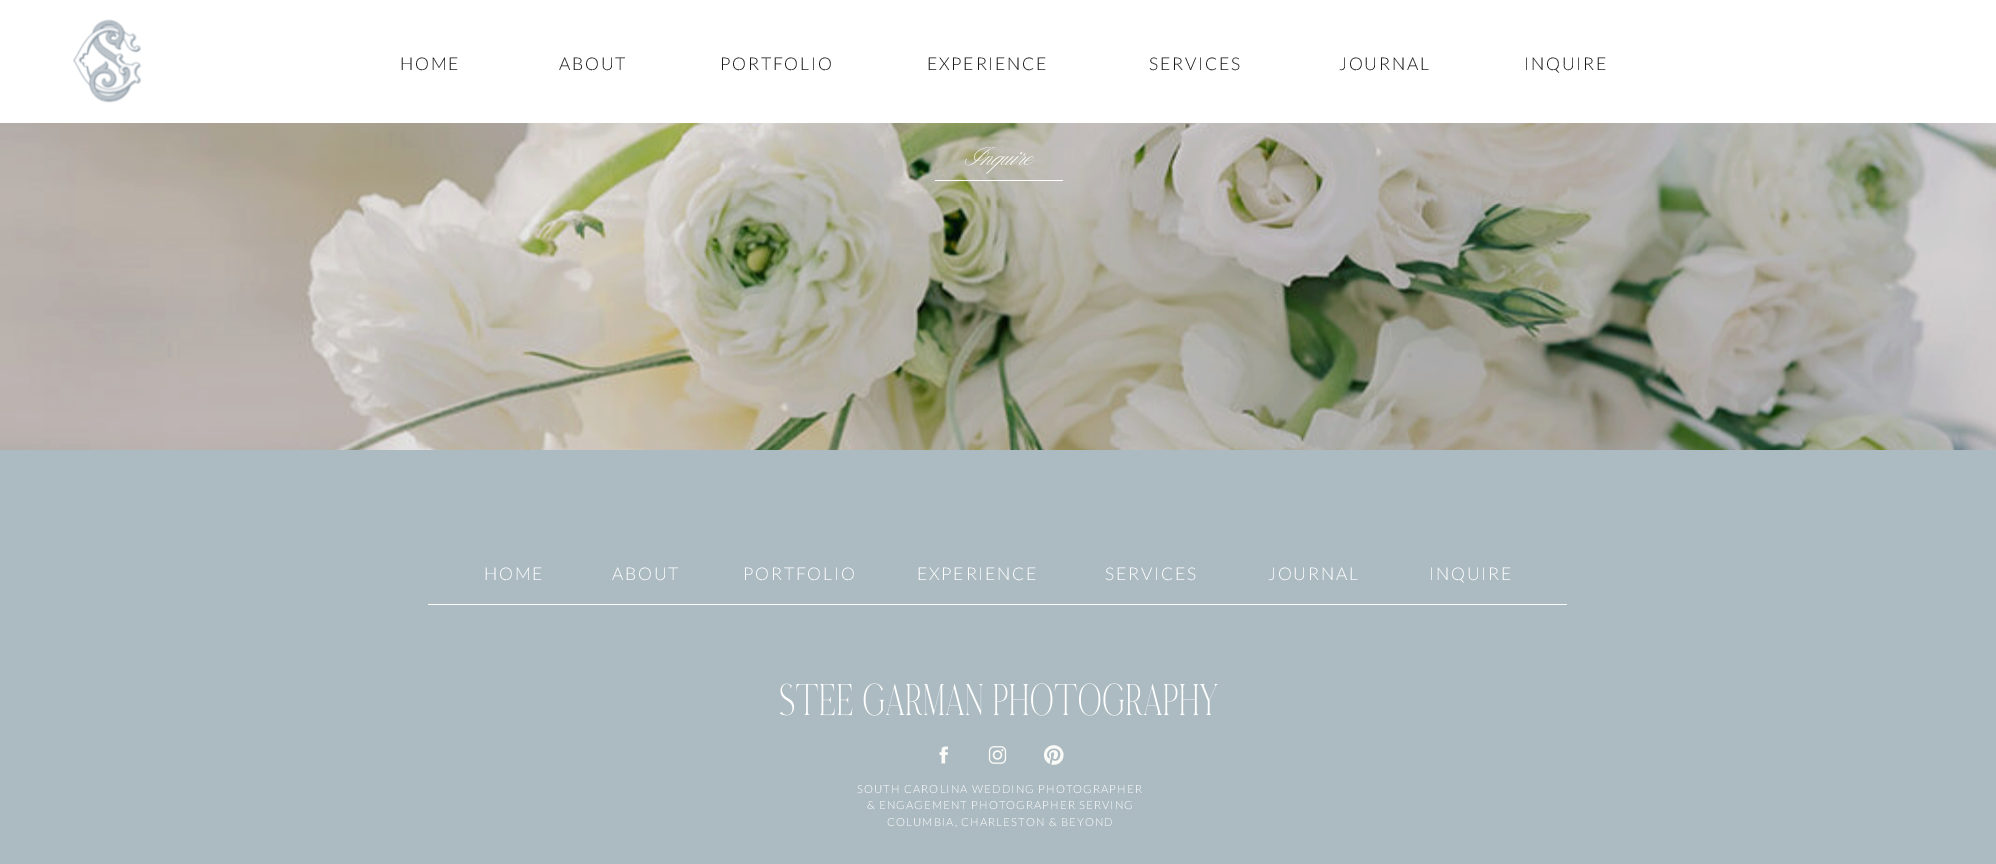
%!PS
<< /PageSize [1996 864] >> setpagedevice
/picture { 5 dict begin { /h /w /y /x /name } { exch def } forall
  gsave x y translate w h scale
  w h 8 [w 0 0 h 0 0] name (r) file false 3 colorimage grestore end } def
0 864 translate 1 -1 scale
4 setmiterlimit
1 setgray
0 0 1996 864 rectfill
(img1.rgb) 73 19 69 84 picture
/Lato-Light [17.5 0 0 -17.5 0 0] selectfont
0.098 0.098 0.102 setrgbcolor
400 70 moveto 1.75 0 (HOME) ashow
559 70 moveto 1.75 0 (ABOUT) ashow
720 70 moveto 1.75 0 (PORTFOLIO) ashow
927 70 moveto 1.75 0 (EXPERIENCE) ashow
1149 70 moveto 1.75 0 (SERVICES) ashow
1339 70 moveto 1.75 0 (JOURNAL) ashow
1524 70 moveto 1.75 0 (INQUIRE) ashow
(img2.rgb) 0 123 1996 327 picture
/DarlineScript-Regular [24 0 0 -24 0 0] selectfont
1 setgray
963 165 moveto (Inquire) show
935 180 128 1 rectfill
0.675 0.733 0.757 setrgbcolor
0 450 1996 414 rectfill
/Lato-Light [17.5 0 0 -17.5 0 0] selectfont
1 setgray
484 580 moveto 1.75 0 (HOME) ashow
612 580 moveto 1.75 0 (ABOUT) ashow
743 580 moveto 1.75 0 (PORTFOLIO) ashow
917 580 moveto 1.75 0 (EXPERIENCE) ashow
1105 580 moveto 1.75 0 (SERVICES) ashow
1268 580 moveto 1.75 0 (JOURNAL) ashow
1429 580 moveto 1.75 0 (INQUIRE) ashow
0.98 0.98 0.969 setrgbcolor
428 604 1139 1 rectfill
(img3.rgb) 780 683 438 33 picture
(img4.rgb) 939 746 9 18 picture
(img5.rgb) 988 746 19 18 picture
(img6.rgb) 1043 745 21 20 picture
/Lato-Light [11.25 0 0 -11.25 0 0] selectfont
1 setgray
857 793 moveto 1.1 0 (SOUTH CAROLINA WEDDING PHOTOGRAPHER) ashow
867 809 moveto 1.1 0 (& ENGAGEMENT PHOTOGRAPHER SERVING) ashow
887 826 moveto 1.1 0 (COLUMBIA, CHARLESTON & BEYOND) ashow
showpage
